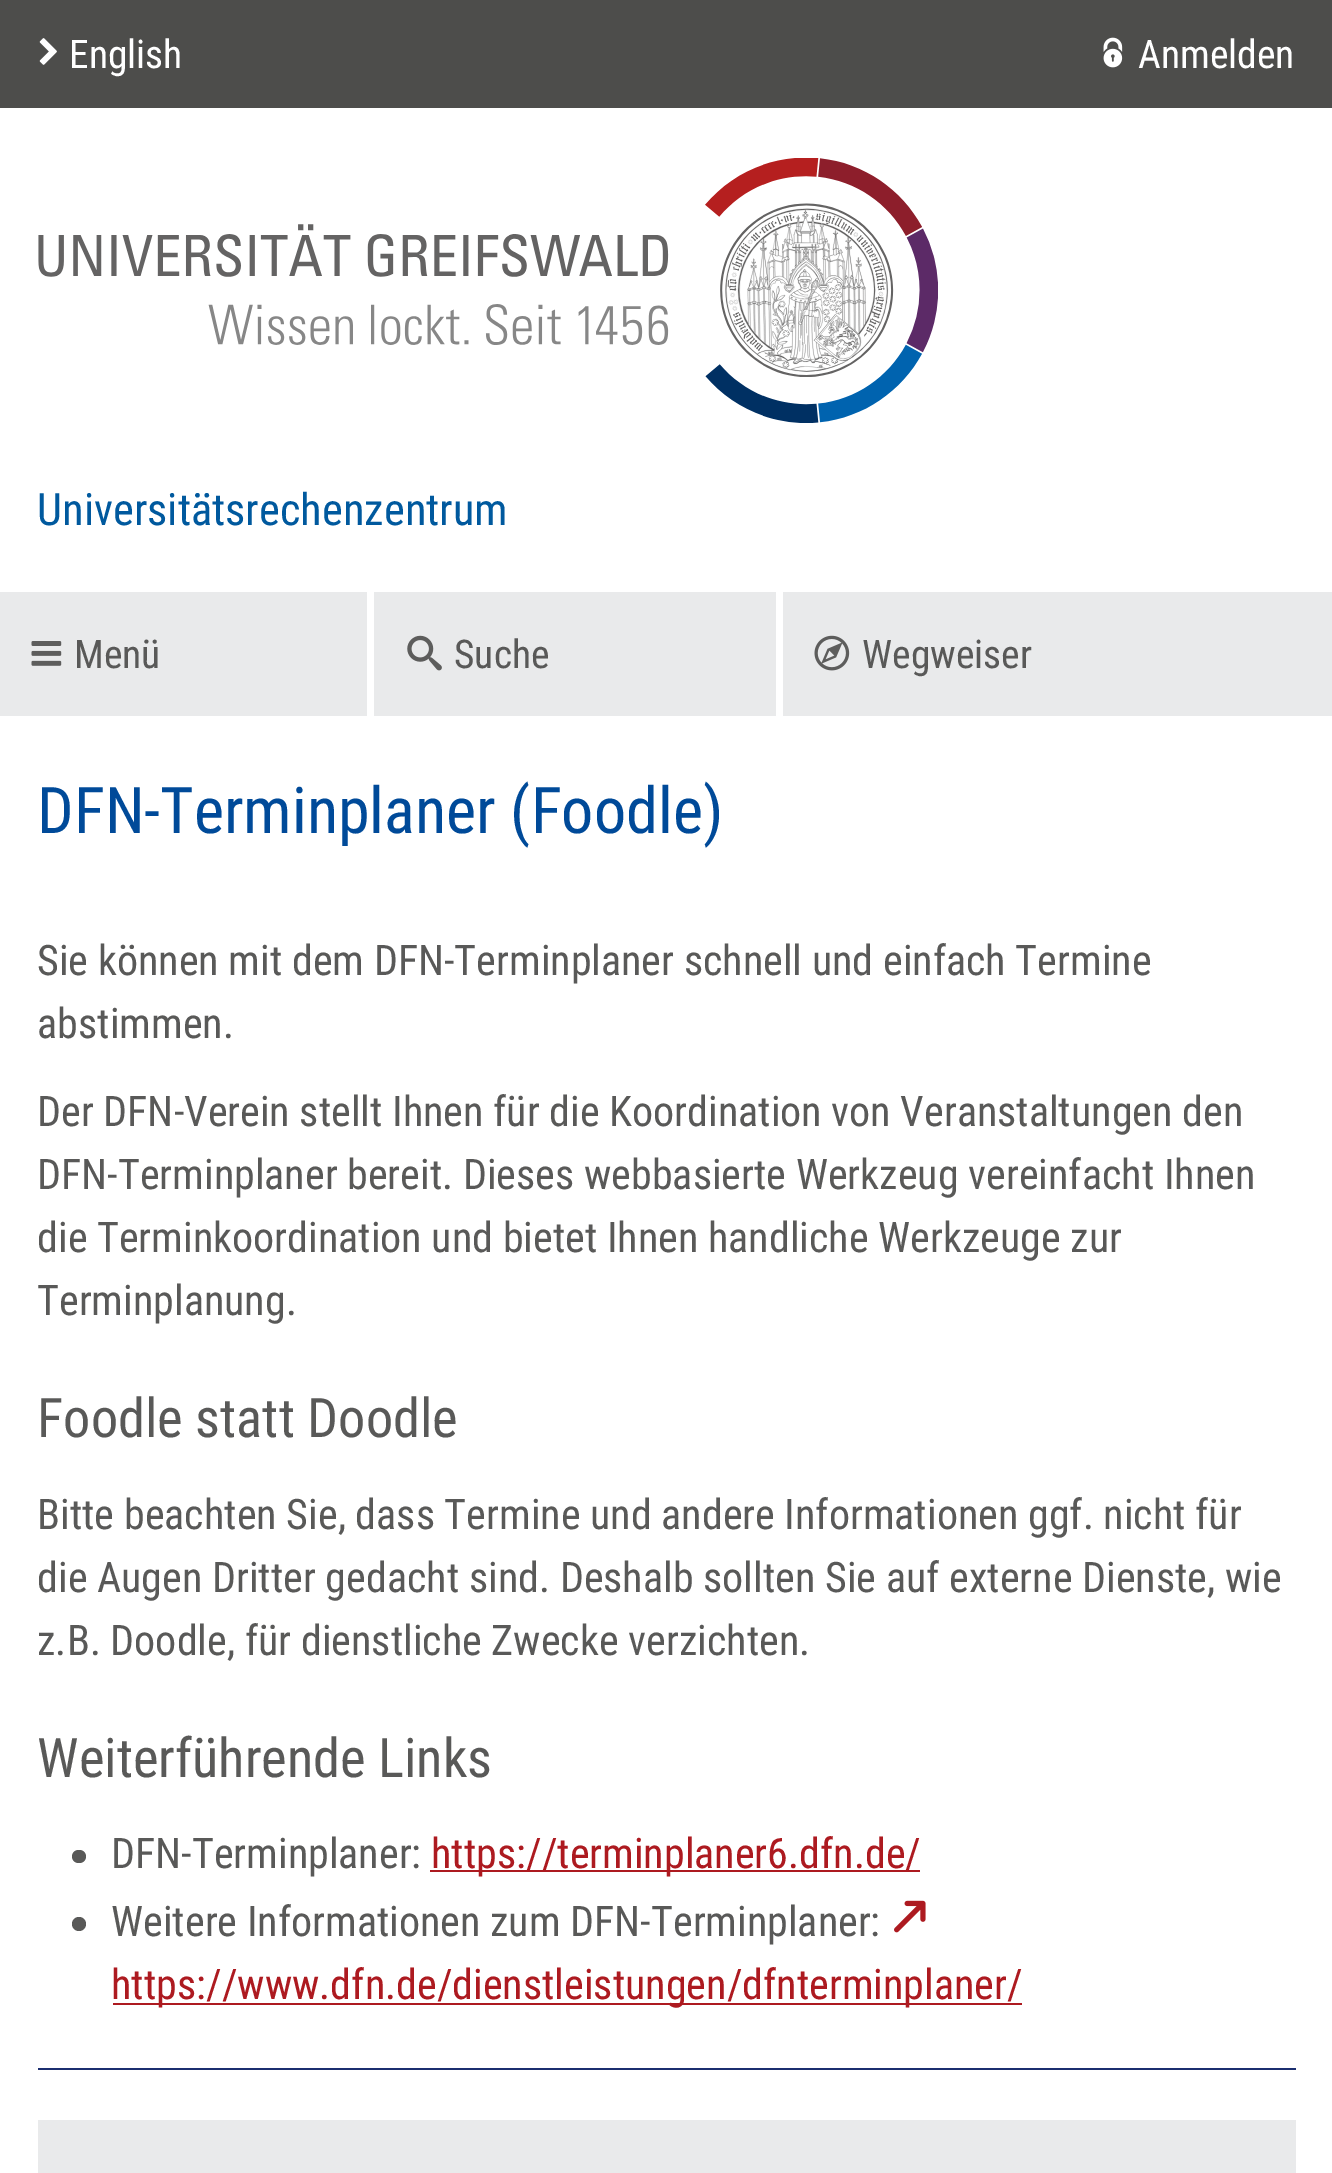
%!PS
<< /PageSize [1332 2173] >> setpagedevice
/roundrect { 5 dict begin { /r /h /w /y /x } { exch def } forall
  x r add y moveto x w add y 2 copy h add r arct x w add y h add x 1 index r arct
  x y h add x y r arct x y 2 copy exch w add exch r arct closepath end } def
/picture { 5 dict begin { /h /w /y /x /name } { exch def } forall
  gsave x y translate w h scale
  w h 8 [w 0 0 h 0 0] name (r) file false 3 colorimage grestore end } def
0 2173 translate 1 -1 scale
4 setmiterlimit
1 setgray
0 0 1332 2173 rectfill
0.302 0.302 0.294 setrgbcolor
0 0 1332 108 rectfill
(img1.rgb) 39 38 18 27 picture
/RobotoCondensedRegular-Regular [39.5 0 0 -39.5 0 0] selectfont
1 setgray
69 68 moveto (English) show
(img2.rgb) 1103 37 20 31 picture
1138 68 moveto (Anmelden) show
(img3.rgb) 38 158 900 265 picture
/RobotoCondensedRegular-Regular [44.5 0 0 -44.5 0 0] selectfont
0 0.349 0.62 setrgbcolor
37 525 moveto (Universitätsrechenzentrum) show
0.914 0.918 0.922 setrgbcolor
0 592 1332 124 rectfill
(img4.rgb) 31 641 31 25 picture
/RobotoCondensedRegular-Regular [39.5 0 0 -39.5 0 0] selectfont
0.349 0.349 0.345 setrgbcolor
74 668 moveto (Menü) show
1 setgray
367 592 7 124 rectfill
(img5.rgb) 407 635 35 36 picture
0.349 0.349 0.345 setrgbcolor
454 668 moveto (Suche) show
1 setgray
776 592 7 124 rectfill
(img6.rgb) 814 635 36 36 picture
0.349 0.349 0.345 setrgbcolor
862 668 moveto (Wegweiser) show
/RobotoCondensedRegular-Regular [64.3 0 0 -64.3 0 0] selectfont
0 0.29 0.6 setrgbcolor
37 833 moveto (DFN-Terminplaner \(Foodle\)) show
/RobotoCondensedRegular-Regular [42.1 0 0 -42.1 0 0] selectfont
0.349 0.349 0.345 setrgbcolor
37 975 moveto (Sie können mit dem DFN-Terminplaner schnell und einfach Termine) show
37 1038 moveto (abstimmen.) show
37 1126 moveto (Der DFN-Verein stellt Ihnen für die Koordination von Veranstaltungen den) show
37 1189 moveto (DFN-Terminplaner bereit. Dieses webbasierte Werkzeug vereinfacht Ihnen) show
37 1252 moveto (die Terminkoordination und bietet Ihnen handliche Werkzeuge zur) show
37 1315 moveto (Terminplanung.) show
/RobotoCondensedRegular-Regular [54.5 0 0 -54.5 0 0] selectfont
37 1437 moveto (Foodle statt Doodle) show
/RobotoCondensedRegular-Regular [42.1 0 0 -42.1 0 0] selectfont
37 1529 moveto (Bitte beachten Sie, dass Termine und andere Informationen ggf. nicht für) show
37 1592 moveto (die Augen Dritter gedacht sind. Deshalb sollten Sie auf externe Dienste, wie) show
37 1655 moveto (z.B. Doodle, für dienstliche Zwecke verzichten.) show
/RobotoCondensedRegular-Regular [54.5 0 0 -54.5 0 0] selectfont
37 1777 moveto (Weiterführende Links) show
72 1850 14 13 6.5 roundrect fill
/RobotoCondensedRegular-Regular [42.1 0 0 -42.1 0 0] selectfont
111 1868 moveto (DFN-Terminplaner:) show
0.678 0.102 0.125 setrgbcolor
430 1870 490 2 rectfill
431 1868 moveto (https://terminplaner6.dfn.de/) show
0.349 0.349 0.345 setrgbcolor
newpath 79 1924 7 0 360 arc closepath fill
111 1936 moveto (Weitere Informationen zum DFN-Terminplaner:) show
(img7.rgb) 894 1900 32 33 picture
0.678 0.102 0.125 setrgbcolor
113 2003 909 2 rectfill
111 1999 moveto (https://www.dfn.de/dienstleistungen/dfnterminplaner/) show
0.106 0.18 0.435 setrgbcolor
38 2068 1258 2 rectfill
0.914 0.918 0.922 setrgbcolor
38 2120 1258 53 rectfill
showpage
